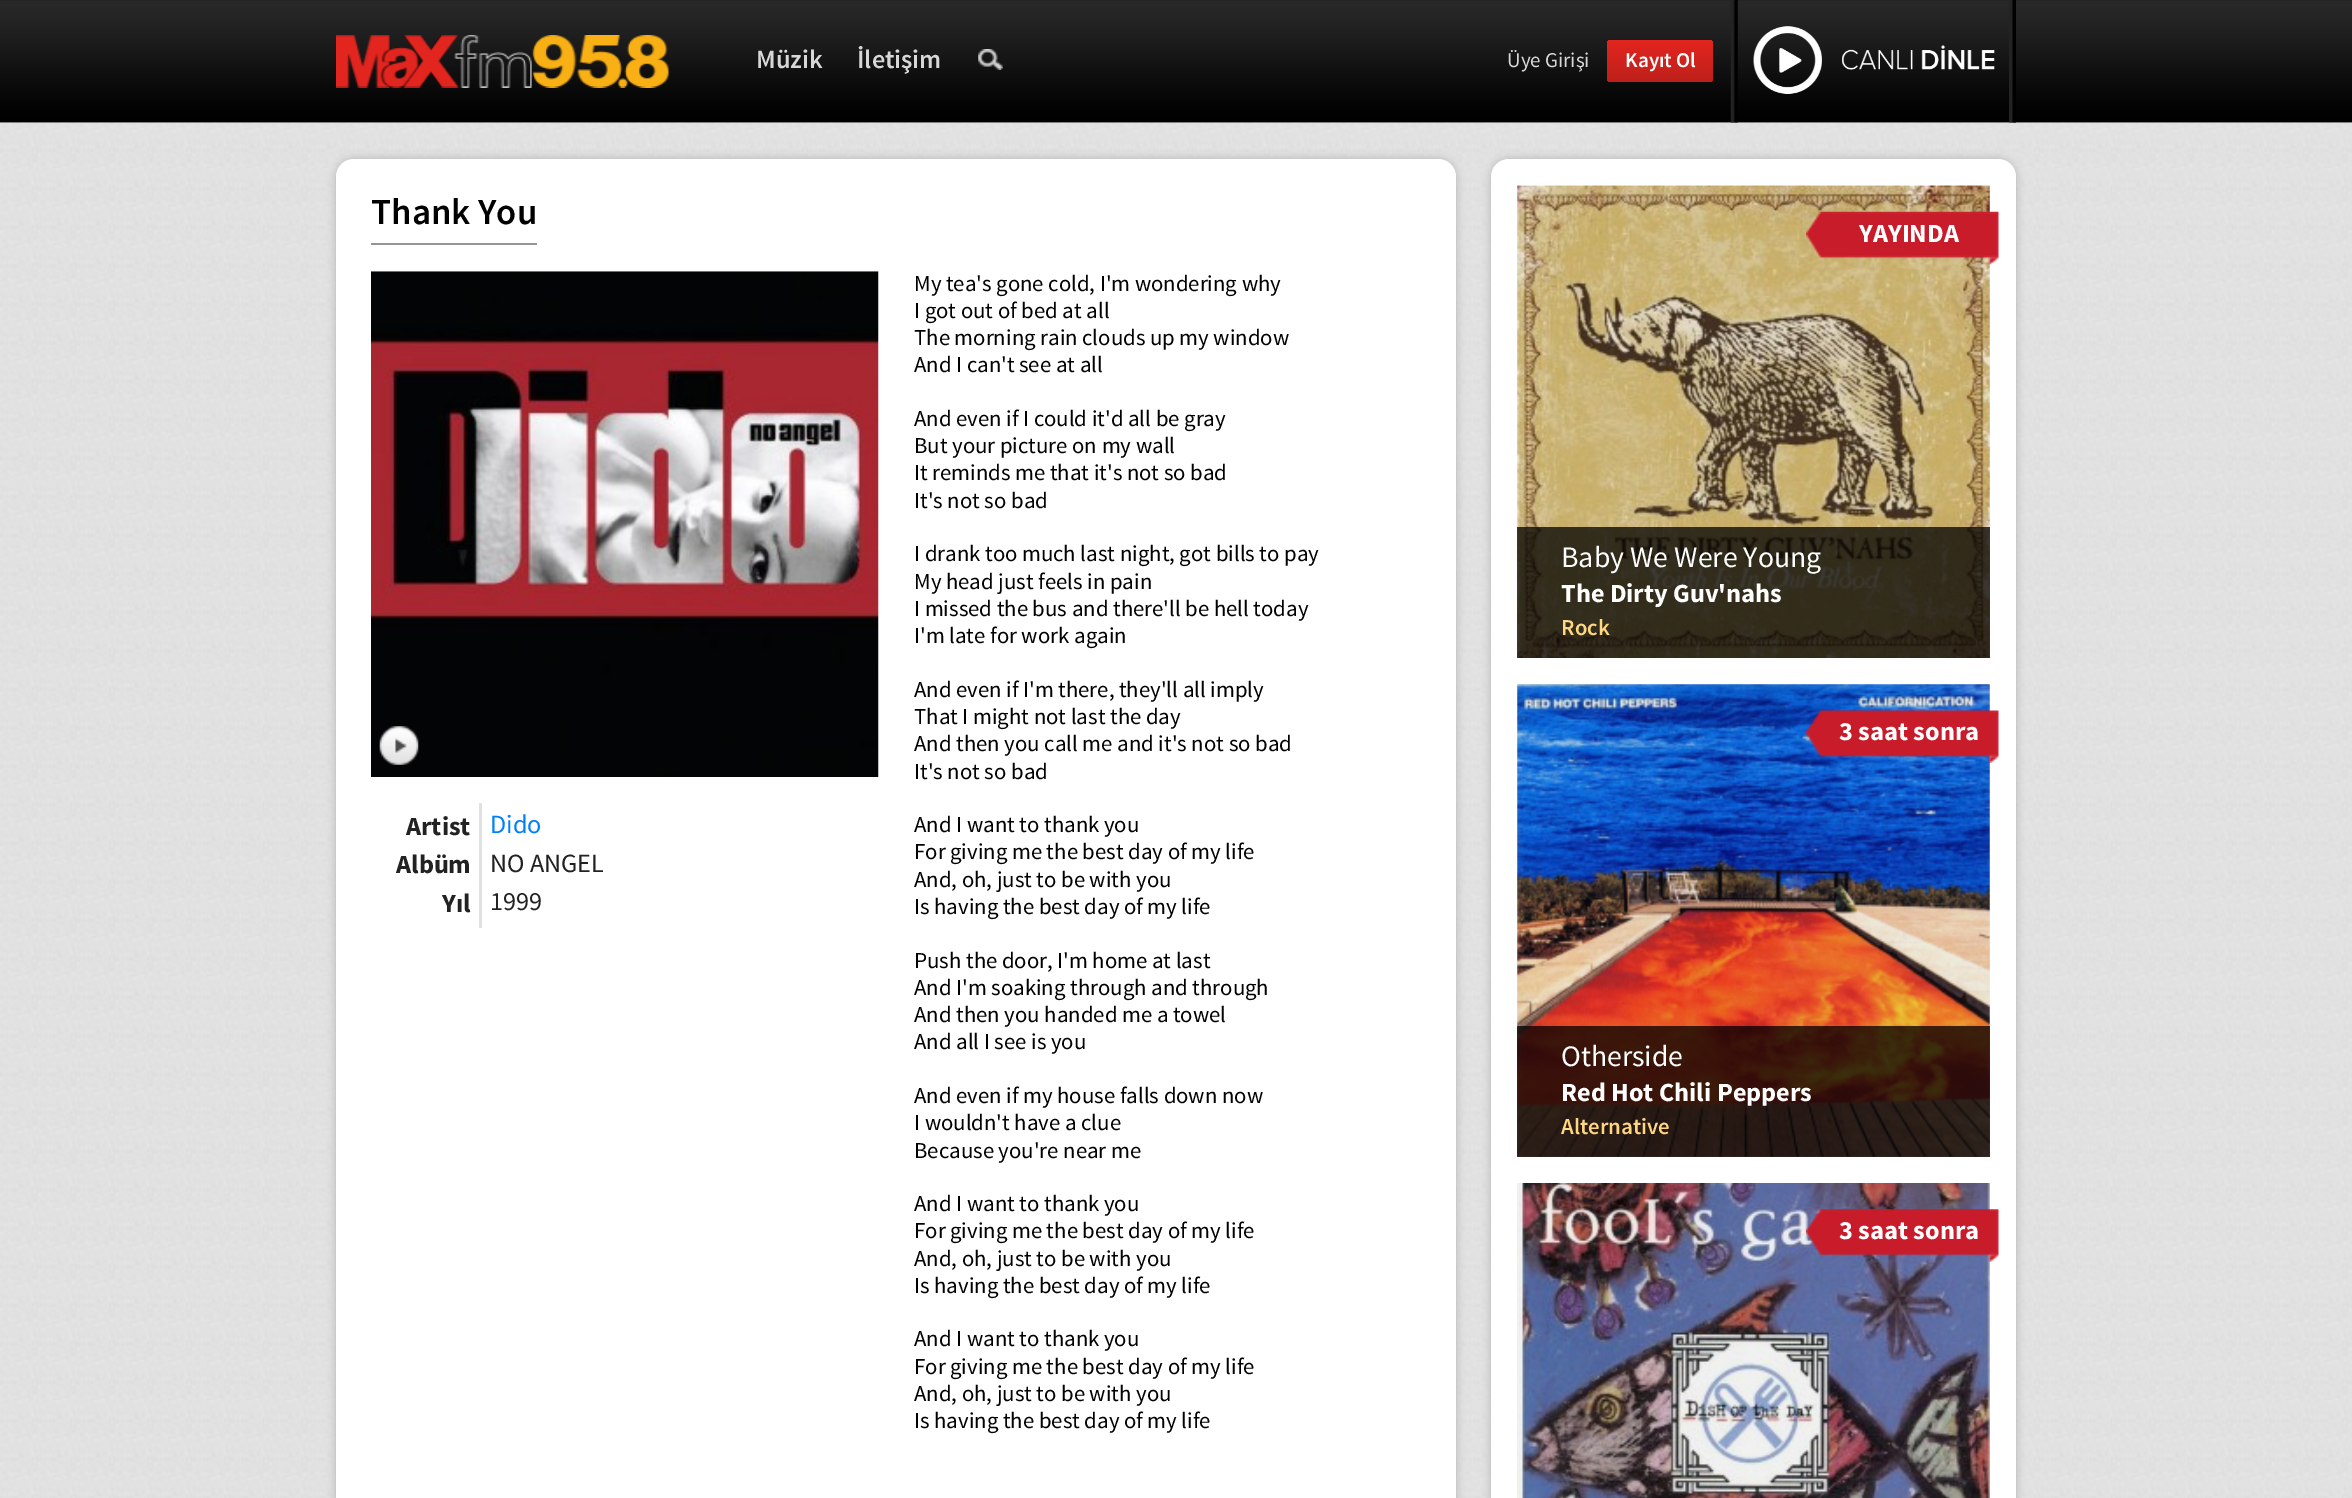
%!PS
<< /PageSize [2352 1498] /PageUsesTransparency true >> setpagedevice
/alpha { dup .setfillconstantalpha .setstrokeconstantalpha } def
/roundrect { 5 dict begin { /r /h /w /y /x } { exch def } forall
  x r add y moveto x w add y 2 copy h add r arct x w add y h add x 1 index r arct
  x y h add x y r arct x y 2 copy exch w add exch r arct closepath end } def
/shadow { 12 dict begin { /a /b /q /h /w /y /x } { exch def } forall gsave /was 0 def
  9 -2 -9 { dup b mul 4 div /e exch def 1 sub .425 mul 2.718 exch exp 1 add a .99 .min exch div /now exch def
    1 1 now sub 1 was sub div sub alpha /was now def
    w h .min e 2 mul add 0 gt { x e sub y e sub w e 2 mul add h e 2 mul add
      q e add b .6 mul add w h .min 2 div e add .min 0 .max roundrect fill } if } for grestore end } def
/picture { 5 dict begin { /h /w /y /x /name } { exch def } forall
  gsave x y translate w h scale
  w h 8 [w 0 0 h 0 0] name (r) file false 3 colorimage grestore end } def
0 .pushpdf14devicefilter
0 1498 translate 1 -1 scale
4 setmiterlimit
1 setgray
0 0 2352 1498 rectfill
(img1.rgb) 0 122 2352 1376 picture
(img2.rgb) 0 0 2352 123 picture
(img3.rgb) 336 35 333 53 picture
/SourceSansPro-SemiBold [26.25 0 0 -26.25 0 0] selectfont
0.843 setgray
756 68 moveto (Müzik) show
857 68 moveto (İletişim) show
(img4.rgb) 978 49 25 21 picture
/SourceSansPro-Regular [21 0 0 -21 0 0] selectfont
1507 67 moveto (Üye Girişi) show
gsave 1607 40 106 42 4 roundrect clip newpath
<< /ShadingType 2 /ColorSpace /DeviceRGB /Coords [1660 40 1660 82] /Extend [true true] /Function << /FunctionType 2 /Domain [0 1] /C0 [0.89 0.145 0.122] /C1 [0.745 0.125 0.106] /N 1 >> >> shfill grestore
/SourceSansPro-SemiBold [21 0 0 -21 0 0] selectfont
1 setgray
1625 67 moveto (Kayıt Ol) show
(img5.rgb) 1730 0 8 123 picture
(img6.rgb) 1753 26 242 68 picture
(img7.rgb) 2009 0 7 123 picture
0.702 setgray
336 159 1120 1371 18 4.5 1 shadow
1 setgray
336 159 1120 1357 18 roundrect fill
0.584 setgray
371 243 166 2 rectfill
/SourceSansPro-SemiBold [36.75 0 0 -36.75 0 0] selectfont
0 setgray
371 224 moveto (Thank You) show
(img8.rgb) 371 271 508 506 picture
(img9.rgb) 379 726 40 39 picture
0.882 setgray
479 803 3 125 rectfill
/SourceSansPro-Bold [26.25 0 0 -26.25 0 0] selectfont
0.133 setgray
406 835 moveto (Artist) show
/SourceSansPro-Regular [26.25 0 0 -26.25 0 0] selectfont
0 0.502 1 setrgbcolor
490 833 moveto (Dido) show
/SourceSansPro-Bold [26.25 0 0 -26.25 0 0] selectfont
0.133 setgray
396 873 moveto (Albüm) show
/SourceSansPro-Regular [26.25 0 0 -26.25 0 0] selectfont
490 872 moveto (NO ANGEL) show
/SourceSansPro-Bold [26.25 0 0 -26.25 0 0] selectfont
442 912 moveto (Yıl) show
/SourceSansPro-Regular [26.25 0 0 -26.25 0 0] selectfont
490 910 moveto (1999) show
/SourceSansPro-Regular [22.75 0 0 -22.75 0 0] selectfont
0 setgray
914 291 moveto (My tea's gone cold, I'm wondering why) show
914 318 moveto (I got out of bed at all) show
914 345 moveto (The morning rain clouds up my window) show
914 372 moveto (And I can't see at all) show
914 426 moveto (And even if I could it'd all be gray) show
914 453 moveto (But your picture on my wall) show
914 480 moveto (It reminds me that it's not so bad) show
914 508 moveto (It's not so bad) show
914 561 moveto (I drank too much last night, got bills to pay) show
914 589 moveto (My head just feels in pain) show
914 616 moveto (I missed the bus and there'll be hell today) show
914 643 moveto (I'm late for work again) show
914 697 moveto (And even if I'm there, they'll all imply) show
914 724 moveto (That I might not last the day) show
914 751 moveto (And then you call me and it's not so bad) show
914 779 moveto (It's not so bad) show
914 832 moveto (And I want to thank you) show
914 859 moveto (For giving me the best day of my life) show
914 887 moveto (And, oh, just to be with you) show
914 914 moveto (Is having the best day of my life) show
914 968 moveto (Push the door, I'm home at last) show
914 995 moveto (And I'm soaking through and through) show
914 1022 moveto (And then you handed me a towel) show
914 1049 moveto (And all I see is you) show
914 1103 moveto (And even if my house falls down now) show
914 1130 moveto (I wouldn't have a clue) show
914 1158 moveto (Because you're near me) show
914 1211 moveto (And I want to thank you) show
914 1238 moveto (For giving me the best day of my life) show
914 1266 moveto (And, oh, just to be with you) show
914 1293 moveto (Is having the best day of my life) show
914 1346 moveto (And I want to thank you) show
914 1374 moveto (For giving me the best day of my life) show
914 1401 moveto (And, oh, just to be with you) show
914 1428 moveto (Is having the best day of my life) show
0.702 setgray
1491 159 525 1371 18 4.5 1 shadow
1 setgray
1491 159 525 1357 18 roundrect fill
(img10.rgb) 1517 185 473 473 picture
0.05 alpha
0 setgray
1517 186 473 472 rectfill
1 alpha
(img11.rgb) 1806 211 193 54 picture
/SourceSansPro-Bold [26.25 0 0 -26.25 0 0] selectfont
1 setgray
1859 242 moveto (YAYINDA) show
0.75 alpha
0 setgray
1517 527 473 131 rectfill
/SourceSansPro-Regular [29.75 0 0 -29.75 0 0] selectfont
1 alpha
1 setgray
1561 567 moveto (Baby We Were Young) show
/SourceSansPro-Bold [26.25 0 0 -26.25 0 0] selectfont
1561 602 moveto (The Dirty Guv'nahs) show
/SourceSansPro-SemiBold [22.75 0 0 -22.75 0 0] selectfont
1 0.843 0.502 setrgbcolor
1561 635 moveto (Rock) show
(img12.rgb) 1517 684 473 473 picture
0.05 alpha
0 setgray
1517 684 473 473 rectfill
1 alpha
(img13.rgb) 1806 710 193 53 picture
/SourceSansPro-Bold [26.25 0 0 -26.25 0 0] selectfont
1 setgray
1839 740 moveto (3 saat sonra) show
0.75 alpha
0 setgray
1517 1026 473 131 rectfill
/SourceSansPro-Regular [29.75 0 0 -29.75 0 0] selectfont
1 alpha
1 setgray
1561 1066 moveto (Otherside) show
/SourceSansPro-Bold [26.25 0 0 -26.25 0 0] selectfont
1561 1101 moveto (Red Hot Chili Peppers) show
/SourceSansPro-SemiBold [22.75 0 0 -22.75 0 0] selectfont
1 0.843 0.502 setrgbcolor
1561 1134 moveto (Alternative) show
(img14.rgb) 1517 1183 473 315 picture
0.05 alpha
0 setgray
1517 1183 473 315 rectfill
1 alpha
(img15.rgb) 1806 1209 193 53 picture
/SourceSansPro-Bold [26.25 0 0 -26.25 0 0] selectfont
1 setgray
1839 1239 moveto (3 saat sonra) show
.poppdf14devicefilter showpage
